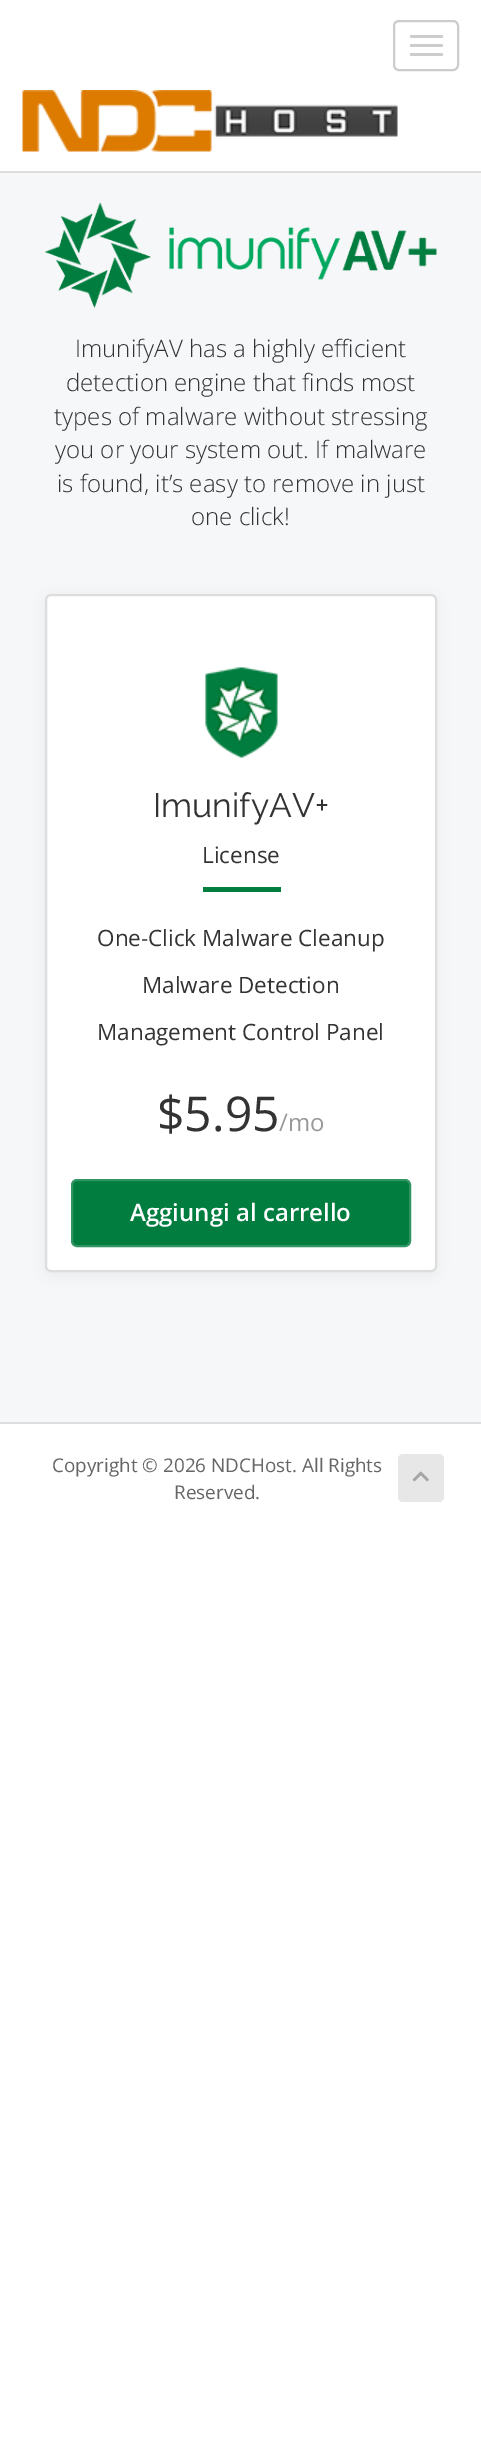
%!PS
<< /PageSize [481 2457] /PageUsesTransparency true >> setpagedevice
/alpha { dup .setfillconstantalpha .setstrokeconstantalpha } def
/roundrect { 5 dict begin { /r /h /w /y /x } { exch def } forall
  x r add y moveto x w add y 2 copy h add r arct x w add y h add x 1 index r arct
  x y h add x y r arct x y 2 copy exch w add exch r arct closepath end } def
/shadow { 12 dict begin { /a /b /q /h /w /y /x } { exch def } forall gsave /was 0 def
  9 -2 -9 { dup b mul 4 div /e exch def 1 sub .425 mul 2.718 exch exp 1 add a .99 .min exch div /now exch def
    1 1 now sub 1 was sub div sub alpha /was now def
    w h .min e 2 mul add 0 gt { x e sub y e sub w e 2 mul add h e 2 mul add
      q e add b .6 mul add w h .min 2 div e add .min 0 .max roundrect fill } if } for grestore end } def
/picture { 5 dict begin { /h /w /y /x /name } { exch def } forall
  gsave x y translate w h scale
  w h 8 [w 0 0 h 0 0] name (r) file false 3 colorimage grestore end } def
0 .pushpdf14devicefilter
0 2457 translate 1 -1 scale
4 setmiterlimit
1 setgray
0 0 481 2457 rectfill
0.867 setgray
0 171 481 2 rectfill
0.8 setgray
2 setlinewidth
394 21 64 49 5 roundrect stroke
410 35 33 3 1.5 roundrect fill
410 44 33 3 1.5 roundrect fill
410 53 33 3 1.5 roundrect fill
(img1.rgb) 22 90 376 62 picture
0.965 0.969 0.973 setrgbcolor
0 173 481 1249 rectfill
(img2.rgb) 45 202 392 106 picture
/OpenSans-Light [24 0 0 -24 0 0] selectfont
0.2 setgray
75 357 moveto (ImunifyAV has a highly efficient) show
66 391 moveto (detection engine that finds most) show
54 425 moveto (types of malware without stressing) show
55 458 moveto (you or your system out. If malware) show
57 492 moveto (is found, it’s easy to remove in just) show
191 525 moveto (one click!) show
0 setgray
45 597 392 678 6 7.5 0.05 shadow
1 setgray
46 595 390 676 5 roundrect gsave fill grestore
0.867 setgray
stroke
(img3.rgb) 205 667 73 91 picture
/Raleway-Regular [33.75 0 0 -33.75 0 0] selectfont
0.2 setgray
153 817 moveto (ImunifyAV+) show
0 0.49 0.247 setrgbcolor
203 887 78 5 rectfill
/OpenSans-Regular [22.5 0 0 -22.5 0 0] selectfont
0.2 setgray
202 863 moveto (License) show
97 946 moveto (One-Click Malware Cleanup) show
142 993 moveto (Malware Detection) show
97 1040 moveto (Management Control Panel) show
/OpenSans-Regular [48 0 0 -48 0 0] selectfont
157 1131 moveto ($5.95) show
/OpenSans-Regular [24 0 0 -24 0 0] selectfont
0.6 setgray
279 1131 moveto (/mo) show
0 0.49 0.247 setrgbcolor
72 1180 338 66 5 roundrect gsave fill grestore
0.188 0.584 0.388 setrgbcolor
stroke
/OpenSans-SemiBold [24 0 0 -24 0 0] selectfont
1 setgray
130 1221 moveto (Aggiungi al carrello) show
0.867 setgray
0 1422 481 2 rectfill
/OpenSans-Regular [18.9 0 0 -18.9 0 0] selectfont
0.4 setgray
52 1472 moveto (Copyright © 2026 NDCHost. All Rights) show
174 1499 moveto (Reserved.) show
0.906 setgray
398 1454 46 48 5 roundrect fill
(img4.rgb) 412 1471 17 11 picture
.poppdf14devicefilter showpage
